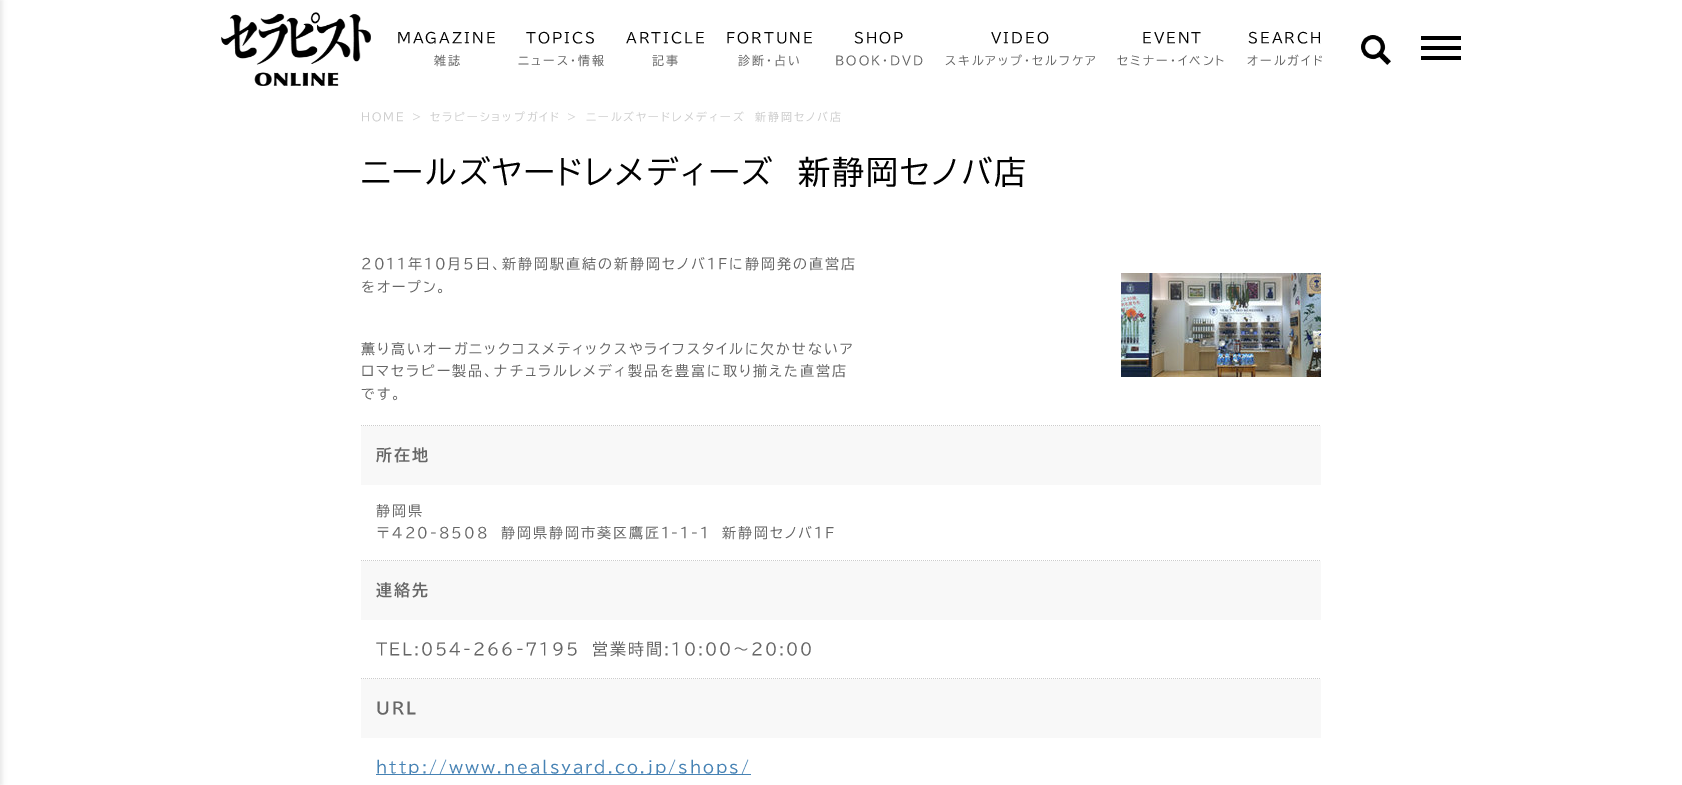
%!PS
<< /PageSize [1682 785] /PageUsesTransparency true >> setpagedevice
/alpha { dup .setfillconstantalpha .setstrokeconstantalpha } def
/roundrect { 5 dict begin { /r /h /w /y /x } { exch def } forall
  x r add y moveto x w add y 2 copy h add r arct x w add y h add x 1 index r arct
  x y h add x y r arct x y 2 copy exch w add exch r arct closepath end } def
/shadow { 12 dict begin { /a /b /q /h /w /y /x } { exch def } forall gsave /was 0 def
  9 -2 -9 { dup b mul 4 div /e exch def 1 sub .425 mul 2.718 exch exp 1 add a .99 .min exch div /now exch def
    1 1 now sub 1 was sub div sub alpha /was now def
    w h .min e 2 mul add 0 gt { x e sub y e sub w e 2 mul add h e 2 mul add
      q e add b .6 mul add w h .min 2 div e add .min 0 .max roundrect fill } if } for grestore end } def
/picture { 5 dict begin { /h /w /y /x /name } { exch def } forall
  gsave x y translate w h scale
  w h 8 [w 0 0 h 0 0] name (r) file false 3 colorimage grestore end } def
0 .pushpdf14devicefilter
0 785 translate 1 -1 scale
4 setmiterlimit
1 setgray
0 0 1682 785 rectfill
0 setgray
-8 0 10 785 0 2.5 0.1 shadow
(img1.rgb) 221 12 150 74 picture
/BIZUDPGothic-Regular [14 0 0 -14 0 0] selectfont
397 43 moveto 2 0 (MAGAZINE) ashow
/BIZUDPGothic-Regular [12 0 0 -12 0 0] selectfont
0.4 setgray
434 65 moveto 2 0 (雑誌) ashow
/BIZUDPGothic-Regular [14 0 0 -14 0 0] selectfont
0 setgray
526 43 moveto 2 0 (TOPICS) ashow
/BIZUDPGothic-Regular [12 0 0 -12 0 0] selectfont
0.4 setgray
518 65 moveto 2 0 (ニュース・情報) ashow
/BIZUDPGothic-Regular [14 0 0 -14 0 0] selectfont
0 setgray
626 43 moveto 2 0 (ARTICLE) ashow
/BIZUDPGothic-Regular [12 0 0 -12 0 0] selectfont
0.4 setgray
652 65 moveto 2 0 (記事) ashow
/BIZUDPGothic-Regular [14 0 0 -14 0 0] selectfont
0 setgray
726 43 moveto 2 0 (FORTUNE) ashow
/BIZUDPGothic-Regular [12 0 0 -12 0 0] selectfont
0.4 setgray
738 65 moveto 2 0 (診断・占い) ashow
/BIZUDPGothic-Regular [14 0 0 -14 0 0] selectfont
0 setgray
854 43 moveto 2 0 (SHOP) ashow
/BIZUDPGothic-Regular [12 0 0 -12 0 0] selectfont
0.4 setgray
835 65 moveto 2 0 (BOOK・DVD) ashow
/BIZUDPGothic-Regular [14 0 0 -14 0 0] selectfont
0 setgray
991 43 moveto 2 0 (VIDEO) ashow
/BIZUDPGothic-Regular [12 0 0 -12 0 0] selectfont
0.4 setgray
945 65 moveto 2 0 (スキルアップ・セルフケア) ashow
/BIZUDPGothic-Regular [14 0 0 -14 0 0] selectfont
0 setgray
1142 43 moveto 2 0 (EVENT) ashow
/BIZUDPGothic-Regular [12 0 0 -12 0 0] selectfont
0.4 setgray
1117 65 moveto 2 0 (セミナー・イベント) ashow
/BIZUDPGothic-Regular [14 0 0 -14 0 0] selectfont
0 setgray
1248 43 moveto 2 0 (SEARCH) ashow
/BIZUDPGothic-Regular [12 0 0 -12 0 0] selectfont
0.4 setgray
1247 65 moveto 2 0 (オールガイド) ashow
(img2.rgb) 1361 35 30 30 picture
0 setgray
1421 36 40 4 rectfill
1421 46 40 4 rectfill
1421 56 40 4 rectfill
/BIZUDPGothic-Regular [11 0 0 -11 0 0] selectfont
0.8 setgray
361 121 moveto 2 0 (HOME) ashow
412 121 moveto 2 0 (>) ashow
430 121 moveto 2 0 (セラピーショップガイド) ashow
567 121 moveto 2 0 (>) ashow
586 121 moveto 2 0 (ニールズヤードレメディーズ　新静岡セノバ店) ashow
/BIZUDPGothic-Regular [32 0 0 -32 0 0] selectfont
0 setgray
361 184 moveto 2 0 (ニールズヤードレメディーズ　新静岡セノバ店) ashow
/BIZUDPGothic-Regular [14 0 0 -14 0 0] selectfont
0.4 setgray
361 269 moveto 2 0 (2011年10月5日、新静岡駅直結の新静岡セノバ1Fに静岡発の直営店) ashow
361 292 moveto 2 0 (をオープン。) ashow
(img3.rgb) 1121 273 200 104 picture
361 354 moveto 2 0 (薫り高いオーガニックコスメティックスやライフスタイルに欠かせないア) ashow
361 376 moveto 2 0 (ロマセラピー製品、ナチュラルレメディ製品を豊富に取り揃えた直営店) ashow
361 399 moveto 2 0 (です。) ashow
0.8 setgray
[1 1] 0 setdash
newpath 361 425.5 moveto 1321 425.5 lineto stroke
0.973 setgray
361 426 960 59 rectfill
/BIZUDPGothic-Bold [16 0 0 -16 0 0] selectfont
0.4 setgray
376 461 moveto 2 0 (所在地) ashow
0.8 setgray
newpath 361 560.5 moveto 1321 560.5 lineto stroke
/BIZUDPGothic-Regular [14 0 0 -14 0 0] selectfont
0.4 setgray
376 516 moveto 2 0 (静岡県) ashow
376 538 moveto 2 0 (〒420-8508　静岡県静岡市葵区鷹匠1-1-1　新静岡セノバ1F) ashow
0.973 setgray
361 561 960 59 rectfill
/BIZUDPGothic-Bold [16 0 0 -16 0 0] selectfont
0.4 setgray
376 596 moveto 2 0 (連絡先) ashow
0.8 setgray
newpath 361 678.5 moveto 1321 678.5 lineto stroke
/BIZUDPGothic-Regular [16 0 0 -16 0 0] selectfont
0.4 setgray
376 655 moveto 2 0 (TEL:054-266-7195　営業時間:10:00〜20:00) ashow
0.973 setgray
361 679 960 59 rectfill
/BIZUDPGothic-Bold [16 0 0 -16 0 0] selectfont
0.4 setgray
376 714 moveto 2 0 (URL) ashow
0.275 0.51 0.706 setrgbcolor
376 774 375 1 rectfill
/BIZUDPGothic-Regular [16 0 0 -16 0 0] selectfont
376 773 moveto 2 0 (http://www.nealsyard.co.jp/shops/) ashow
.poppdf14devicefilter showpage
